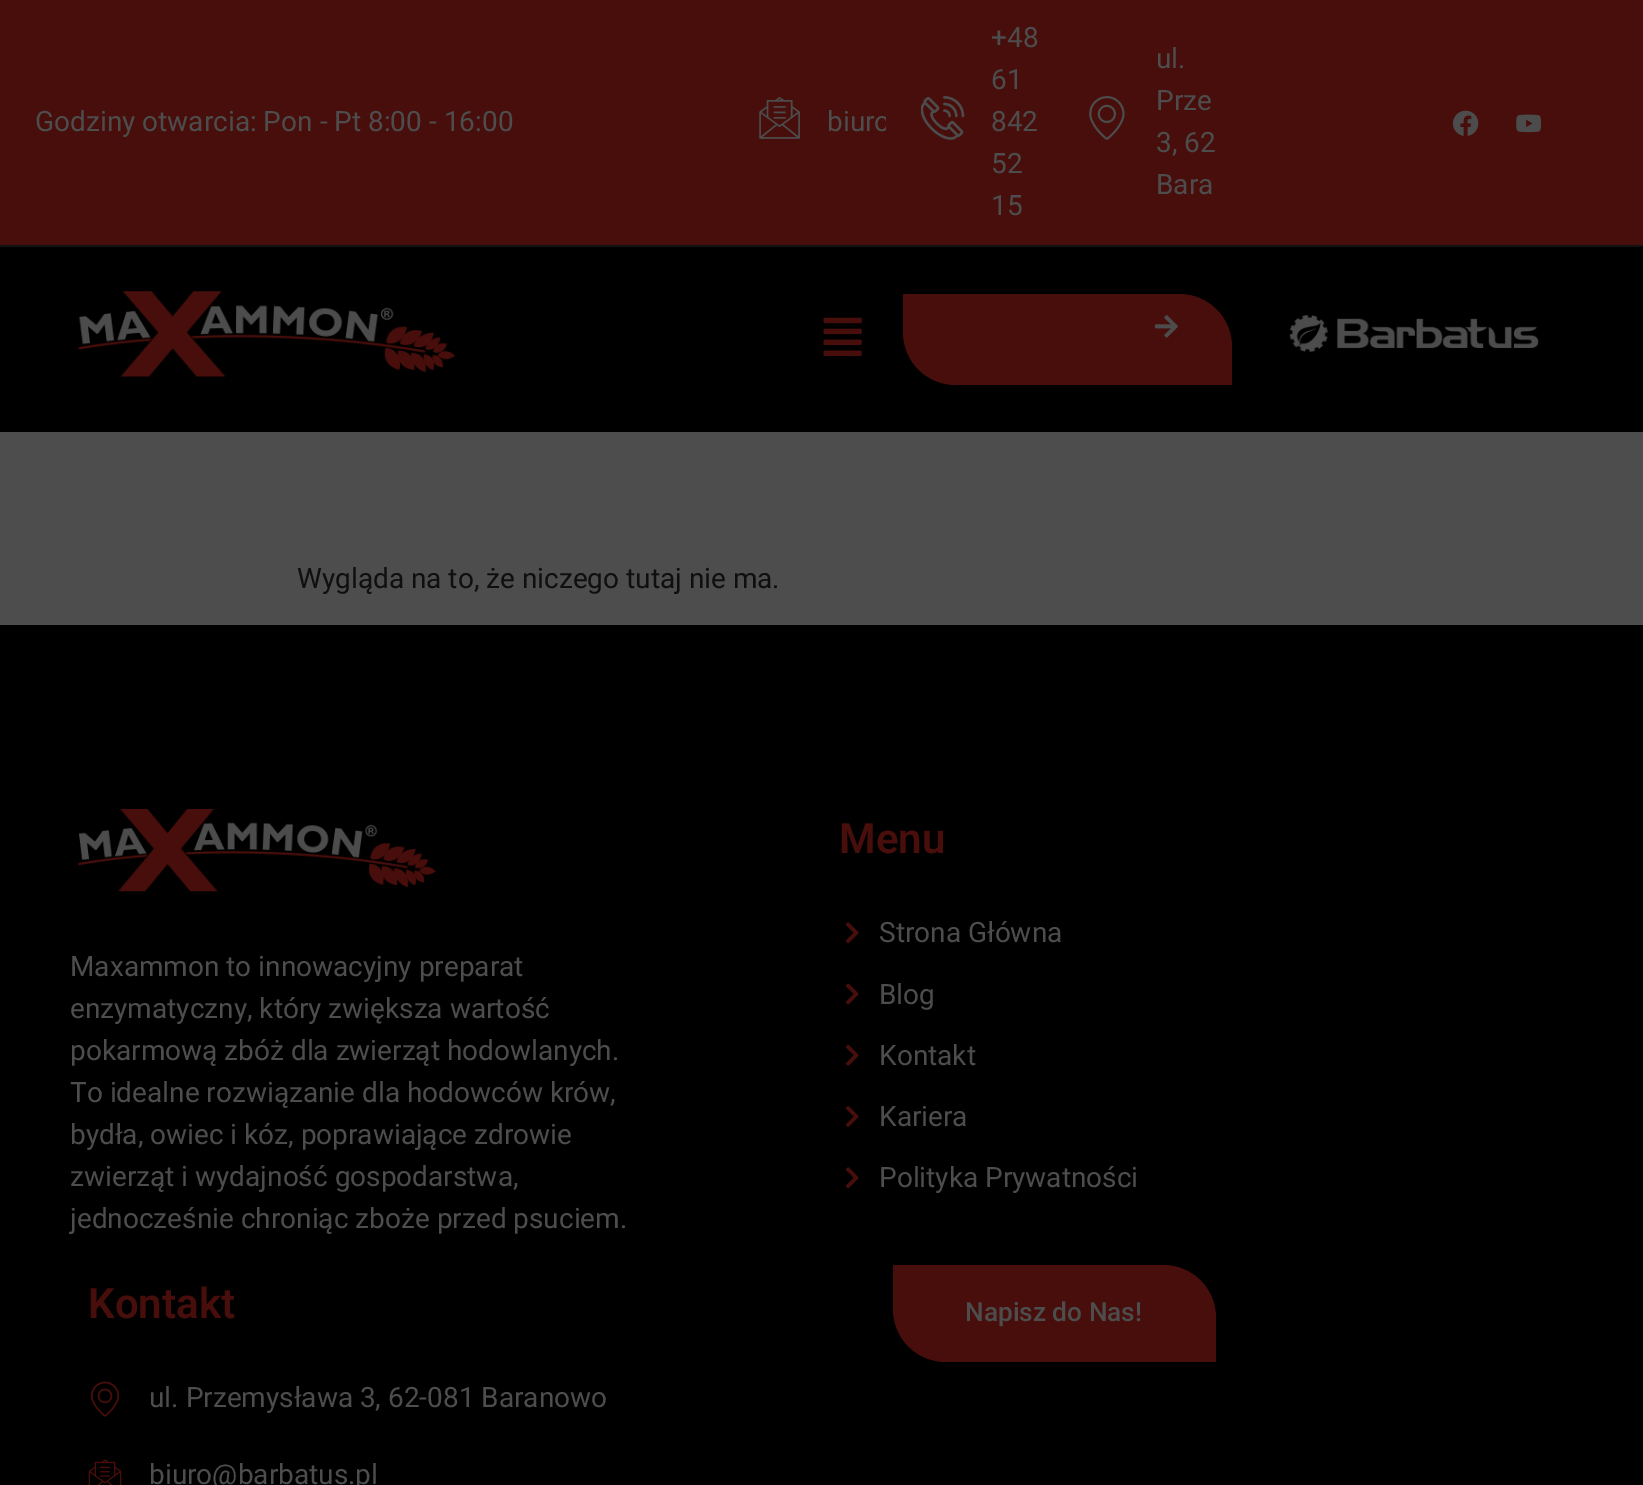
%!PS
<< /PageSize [1643 1485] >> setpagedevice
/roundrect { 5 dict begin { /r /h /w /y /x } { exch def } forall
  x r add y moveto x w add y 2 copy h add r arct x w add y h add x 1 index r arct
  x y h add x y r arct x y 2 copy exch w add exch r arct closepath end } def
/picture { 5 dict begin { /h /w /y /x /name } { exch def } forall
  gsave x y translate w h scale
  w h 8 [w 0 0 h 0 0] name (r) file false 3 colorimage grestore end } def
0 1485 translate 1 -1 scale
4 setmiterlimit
0.302 setgray
0 0 1643 1485 rectfill
0.278 0.055 0.043 setrgbcolor
0 0 1643 245 rectfill
/Roboto-Regular [28 0 0 -28 0 0] selectfont
0.302 setgray
35 131 moveto (Godziny otwarcia: Pon - Pt 8:00 - 16:00) show
(img1.rgb) 759 97 41 42 picture
gsave
758 96 128 53 9 roundrect clip newpath
827 131 moveto (biuro) show
grestore
(img2.rgb) 921 96 44 44 picture
991 47 moveto (+48) show
991 89 moveto (61) show
991 131 moveto (842) show
991 173 moveto (52) show
991 215 moveto (15) show
(img3.rgb) 1089 96 36 44 picture
1156 68 moveto (ul.) show
1156 110 moveto (Prze) show
1156 152 moveto (3, 62) show
1156 194 moveto (Bara) show
(img4.rgb) 1453 110 26 26 picture
(img5.rgb) 1516 114 26 19 picture
0 setgray
0 247 1643 185 rectfill
0.071 setgray
0 245 1643 2 rectfill
(img6.rgb) 78 291 377 86 picture
(img7.rgb) 823 317 39 39 picture
0.278 0.055 0.043 setrgbcolor
newpath 903 294 moveto 1179 294 lineto 1208.5 294 1232 317.5 1232 347 curveto 1232 385 lineto 956 385 lineto 926.5 385 903 361.5 903 332 curveto closepath fill
(img8.rgb) 1154 315 24 23 picture
(img9.rgb) 1289 315 250 37 picture
0.059 setgray
297 588 moveto (Wygląda na to, że niczego tutaj nie ma.) show
0 setgray
0 625 1643 860 rectfill
(img10.rgb) 78 809 358 83 picture
0.302 setgray
70 976 moveto (Maxammon to innowacyjny preparat) show
70 1018 moveto (enzymatyczny, który zwiększa wartość) show
70 1060 moveto (pokarmową zbóż dla zwierząt hodowlanych.) show
70 1102 moveto (To idealne rozwiązanie dla hodowców krów,) show
70 1144 moveto (bydła, owiec i kóz, poprawiające zdrowie) show
70 1186 moveto (zwierząt i wydajność gospodarstwa,) show
70 1228 moveto (jednocześnie chroniąc zboże przed psuciem.) show
/Roboto-SemiBold [42 0 0 -42 0 0] selectfont
0.278 0.055 0.043 setrgbcolor
839 853 moveto (Menu) show
(img11.rgb) 845 922 14 22 picture
/Roboto-Regular [28 0 0 -28 0 0] selectfont
0.302 setgray
879 942 moveto (Strona Główna) show
(img12.rgb) 845 983 14 22 picture
879 1004 moveto (Blog) show
(img13.rgb) 845 1044 14 22 picture
879 1065 moveto (Kontakt) show
(img14.rgb) 845 1106 14 21 picture
879 1126 moveto (Kariera) show
(img11.rgb) 845 1167 14 22 picture
879 1187 moveto (Polityka Prywatności) show
/Roboto-SemiBold [42 0 0 -42 0 0] selectfont
0.278 0.055 0.043 setrgbcolor
88 1318 moveto (Kontakt) show
(img15.rgb) 90 1381 30 36 picture
/Roboto-Regular [28 0 0 -28 0 0] selectfont
0.302 setgray
149 1407 moveto (ul. Przemysława 3, 62-081 Baranowo) show
(img16.rgb) 88 1459 34 26 picture
149 1484 moveto (biuro@barbatus.pl) show
0.278 0.055 0.043 setrgbcolor
newpath 893 1265 moveto 1163 1265 lineto 1192.5 1265 1216 1288.5 1216 1318 curveto 1216 1362 lineto 946 1362 lineto 916.5 1362 893 1338.5 893 1309 curveto closepath fill
/Roboto-Medium [26.25 0 0 -26.25 0 0] selectfont
0.302 setgray
965 1321 moveto (Napisz do Nas!) show
showpage
